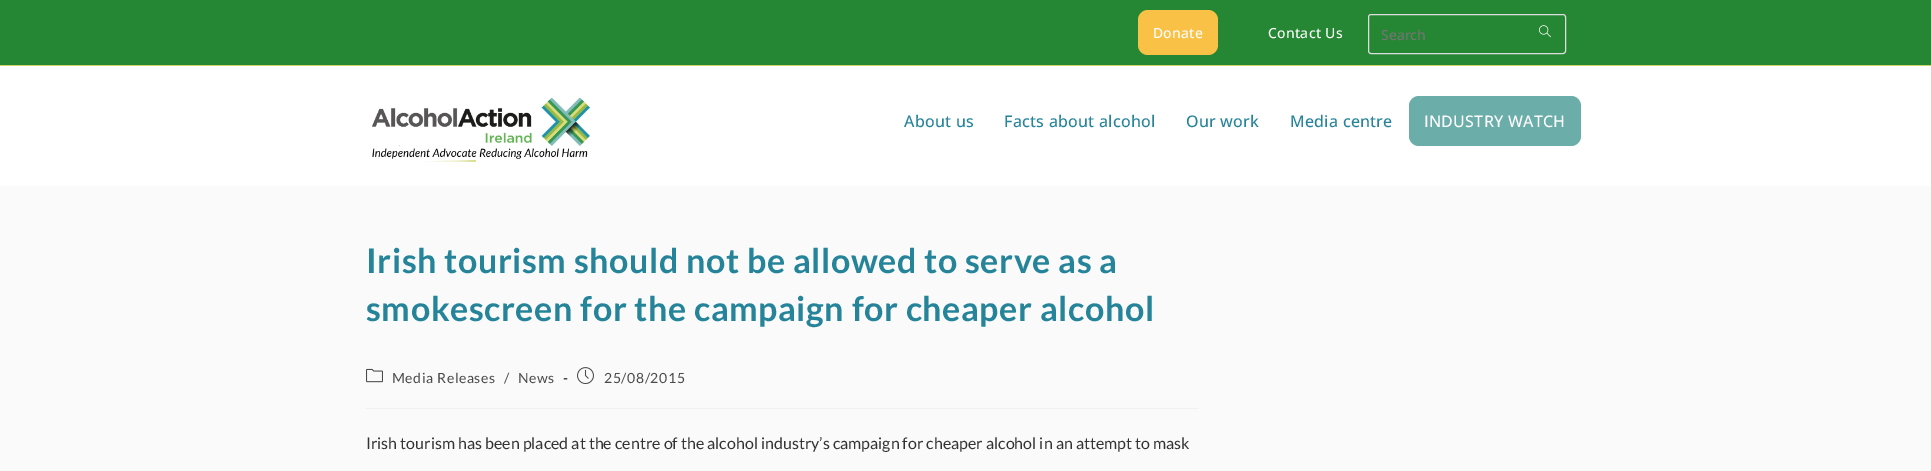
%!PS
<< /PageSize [1931 471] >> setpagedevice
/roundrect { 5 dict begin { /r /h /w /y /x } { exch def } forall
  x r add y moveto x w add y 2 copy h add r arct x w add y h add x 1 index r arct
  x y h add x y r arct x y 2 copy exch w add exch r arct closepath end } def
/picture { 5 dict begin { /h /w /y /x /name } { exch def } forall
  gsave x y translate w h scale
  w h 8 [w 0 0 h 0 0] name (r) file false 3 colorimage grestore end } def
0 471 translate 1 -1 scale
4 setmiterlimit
0.98 setgray
0 0 1931 471 rectfill
0.145 0.525 0.2 setrgbcolor
0 0 1931 65 rectfill
0.8 0.82 0.412 setrgbcolor
0 65 1931 1 rectfill
0.976 0.757 0.271 setrgbcolor
1138 10 80 45 10 roundrect fill
/OpenSans-Medium [14 0 0 -14 0 0] selectfont
1 setgray
1153 38 moveto 0.25 0 (Donate) ashow
1268 38 moveto 0.25 0 (Contact Us) ashow
0.867 setgray
1368.5 14.5 197 39 2.5 roundrect stroke
0.459 setgray
1381 40 moveto (Search) show
(img1.rgb) 1539 25 12 13 picture
1 setgray
0 66 1931 120 rectfill
(img2.rgb) 372 97 218 65 picture
/OpenSans-Medium [16 0 0 -16 0 0] selectfont
0.145 0.518 0.6 setrgbcolor
904 127 moveto 0.25 0 (About us) ashow
1004 127 moveto 0.25 0 (Facts about alcohol) ashow
1186 127 moveto 0.25 0 (Our work) ashow
1290 127 moveto 0.25 0 (Media centre) ashow
0.42 0.678 0.663 setrgbcolor
1409 96 172 50 10 roundrect fill
1 setgray
1424 127 moveto 0.25 0 (INDUSTRY WATCH) ashow
/Lato-Bold [34 0 0 -34 0 0] selectfont
0.145 0.518 0.6 setrgbcolor
366 273 moveto 0.6 0 (Irish tourism should not be allowed to serve as a) ashow
366 321 moveto 0.6 0 (smokescreen for the campaign for cheaper alcohol) ashow
0.945 setgray
366 408 833 1 rectfill
(img3.rgb) 366 368 17 15 picture
/Lato-Regular [14 0 0 -14 0 0] selectfont
0.29 setgray
392 383 moveto 0.6 0 (Media Releases) ashow
504 383 moveto 0.6 0 (/) ashow
518 383 moveto 0.6 0 (News) ashow
/Lato-Bold [14 0 0 -14 0 0] selectfont
563 383 moveto 0.6 0 (-) ashow
(img4.rgb) 577 367 17 18 picture
/Lato-Regular [14 0 0 -14 0 0] selectfont
604 383 moveto 0.6 0 (25/08/2015) ashow
/Lato-Regular [16 0 0 -16 0 0] selectfont
0.2 setgray
366 449 moveto (Irish tourism has been placed at the centre of the alcohol industry’s campaign for cheaper alcohol in an attempt to mask) show
showpage
